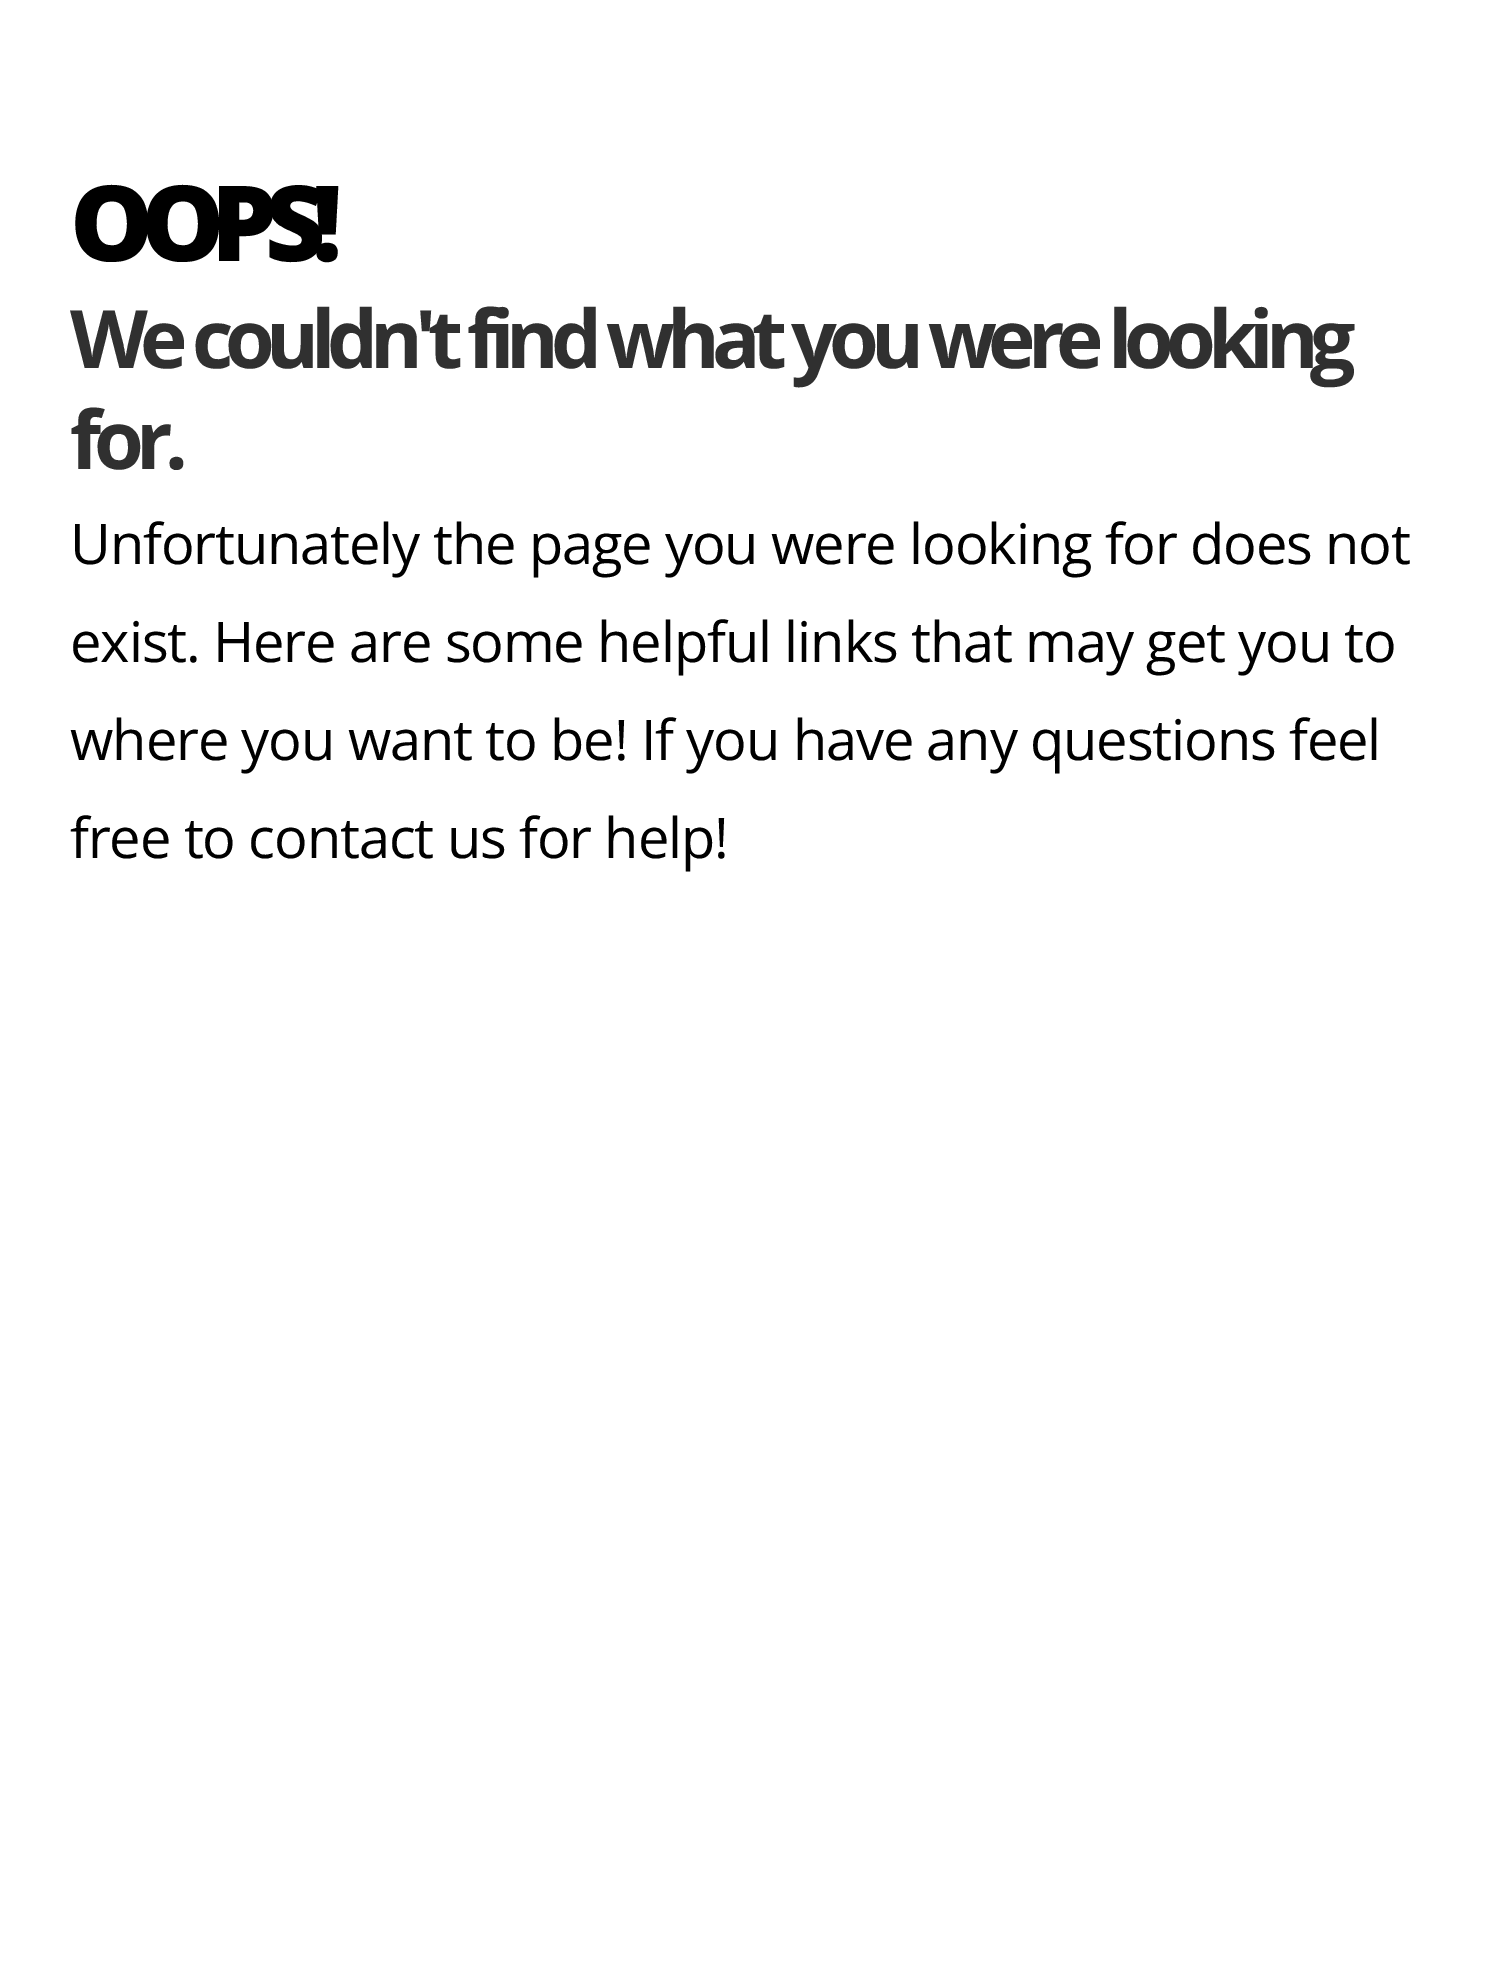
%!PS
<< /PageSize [1504 1972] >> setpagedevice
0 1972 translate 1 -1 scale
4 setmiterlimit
1 setgray
0 0 1504 1972 rectfill
/OpenSans-ExtraBold [105 0 0 -105 0 0] selectfont
0 setgray
70 261 moveto -13 0 (OOPS!) ashow
/OpenSans-Bold [80.5 0 0 -80.5 0 0] selectfont
0.188 setgray
70 368 moveto -8.25 0 (We couldn't find what you were looking) ashow
70 469 moveto -7.5 0 (for.) ashow
/OpenSans-Regular [56 0 0 -56 0 0] selectfont
0 setgray
70 564 moveto -1.12 0 (Unfortunately the page you were looking for does not) ashow
70 662 moveto -1.12 0 (exist. Here are some helpful links that may get you to) ashow
70 760 moveto -1.12 0 (where you want to be! If you have any questions feel) ashow
70 858 moveto -1.12 0 (free to contact us for help!) ashow
showpage
